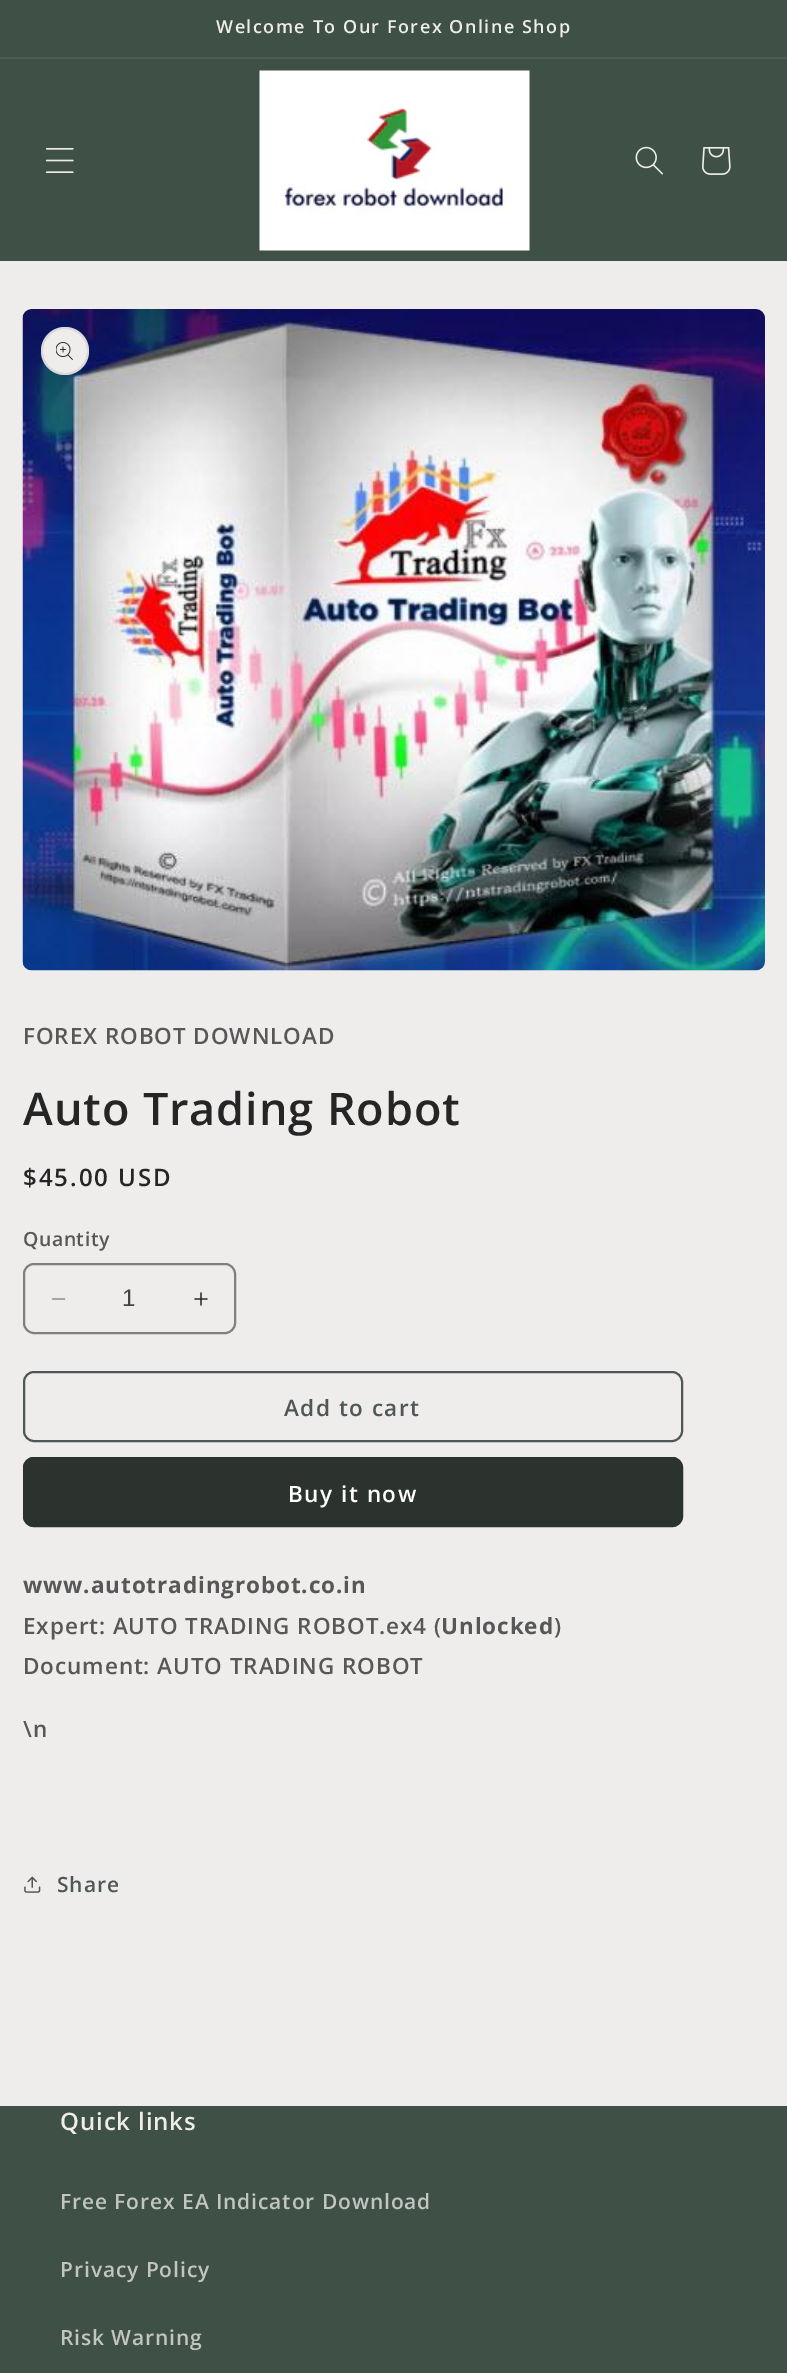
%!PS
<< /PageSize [787 2373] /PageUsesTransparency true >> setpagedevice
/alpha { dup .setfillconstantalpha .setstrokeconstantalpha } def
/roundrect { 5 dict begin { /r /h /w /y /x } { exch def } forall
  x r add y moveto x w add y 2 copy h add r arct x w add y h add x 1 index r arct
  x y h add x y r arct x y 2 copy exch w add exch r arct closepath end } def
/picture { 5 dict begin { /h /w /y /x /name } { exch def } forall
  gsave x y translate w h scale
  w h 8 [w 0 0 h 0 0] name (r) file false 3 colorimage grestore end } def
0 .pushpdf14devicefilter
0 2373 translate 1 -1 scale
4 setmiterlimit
0.937 0.925 0.925 setrgbcolor
0 0 787 2373 rectfill
0.247 0.318 0.278 setrgbcolor
0 0 787 57 rectfill
0.302 0.365 0.329 setrgbcolor
0 57 787 2 rectfill
/OpenSans-SemiBold [18 0 0 -18 0 0] selectfont
0.937 0.925 0.925 setrgbcolor
216 33 moveto 1.5 0 (Welcome To Our Forex Online Shop) ashow
0.247 0.318 0.278 setrgbcolor
0 59 787 202 rectfill
(img1.rgb) 45 148 29 25 picture
(img2.rgb) 259 70 271 181 picture
(img3.rgb) 635 146 28 29 picture
(img4.rgb) 702 147 29 28 picture
(img5.rgb) 22 309 743 662 picture
0.937 0.925 0.925 setrgbcolor
newpath 65 351 24 0 360 arc closepath fill
0.1 alpha
0.145 setgray
2 setlinewidth
newpath 65 351 23 0 360 arc closepath stroke
1 alpha
(img6.rgb) 56 342 17 18 picture
/OpenSans-SemiBold [22.5 0 0 -22.5 0 0] selectfont
0.345 0.341 0.341 setrgbcolor
23 1044 moveto 0.9 0 (FOREX ROBOT DOWNLOAD) ashow
/OpenSans-SemiBold [45 0 0 -45 0 0] selectfont
0.145 setgray
23 1125 moveto 0.9 0 (Auto Trading Robot) ashow
/OpenSans-SemiBold [24 0 0 -24 0 0] selectfont
23 1186 moveto 2 0 ($45.00 USD) ashow
/OpenSans-SemiBold [19.5 0 0 -19.5 0 0] selectfont
0.345 0.341 0.341 setrgbcolor
23 1246 moveto 0.5 0 (Quantity) ashow
(img7.rgb) 51 1298 15 2 picture
(img8.rgb) 194 1292 14 14 picture
0.502 0.498 0.498 setrgbcolor
24 1264 211 69 10 roundrect stroke
/LiberationSans-Regular [24 0 0 -24 0 0] selectfont
0.263 setgray
122 1306 moveto (1) show
0.314 0.337 0.333 setrgbcolor
24 1372 658 69 10 roundrect stroke
/OpenSans-SemiBold [22.5 0 0 -22.5 0 0] selectfont
284 1416 moveto 1.5 0 (Add to cart) ashow
0.173 0.2 0.184 setrgbcolor
23 1457 660 70 11 roundrect fill
24 1458 658 68 10 roundrect stroke
1 setgray
288 1502 moveto 1.5 0 (Buy it now) ashow
/OpenSans-Bold [22.5 0 0 -22.5 0 0] selectfont
0.345 0.341 0.341 setrgbcolor
23 1593 moveto 0.9 0 (www.autotradingrobot.co.in) ashow
/OpenSans-SemiBold [22.5 0 0 -22.5 0 0] selectfont
23 1634 moveto 0.9 0 (Expert: AUTO TRADING ROBOT.ex4 \() ashow
/OpenSans-Bold [22.5 0 0 -22.5 0 0] selectfont
441 1634 moveto 0.9 0 (Unlocked) ashow
/OpenSans-SemiBold [22.5 0 0 -22.5 0 0] selectfont
554 1634 moveto 0.9 0 (\)) ashow
23 1674 moveto 0.9 0 (Document: AUTO TRADING ROBOT) ashow
23 1737 moveto 0.9 0 (\\n) ashow
(img9.rgb) 24 1876 17 17 picture
/OpenSans-SemiBold [21 0 0 -21 0 0] selectfont
0.314 0.337 0.333 setrgbcolor
57 1892 moveto 0.9 0 (Share) ashow
0.247 0.318 0.278 setrgbcolor
0 2106 787 267 rectfill
/OpenSans-SemiBold [24 0 0 -24 0 0] selectfont
0.937 0.925 0.925 setrgbcolor
60 2130 moveto 0.9 0 (Quick links) ashow
/OpenSans-SemiBold [21 0 0 -21 0 0] selectfont
0.765 0.773 0.765 setrgbcolor
60 2209 moveto 0.9 0 (Free Forex EA Indicator Download) ashow
60 2277 moveto 0.9 0 (Privacy Policy) ashow
60 2345 moveto 0.9 0 (Risk Warning) ashow
.poppdf14devicefilter showpage
